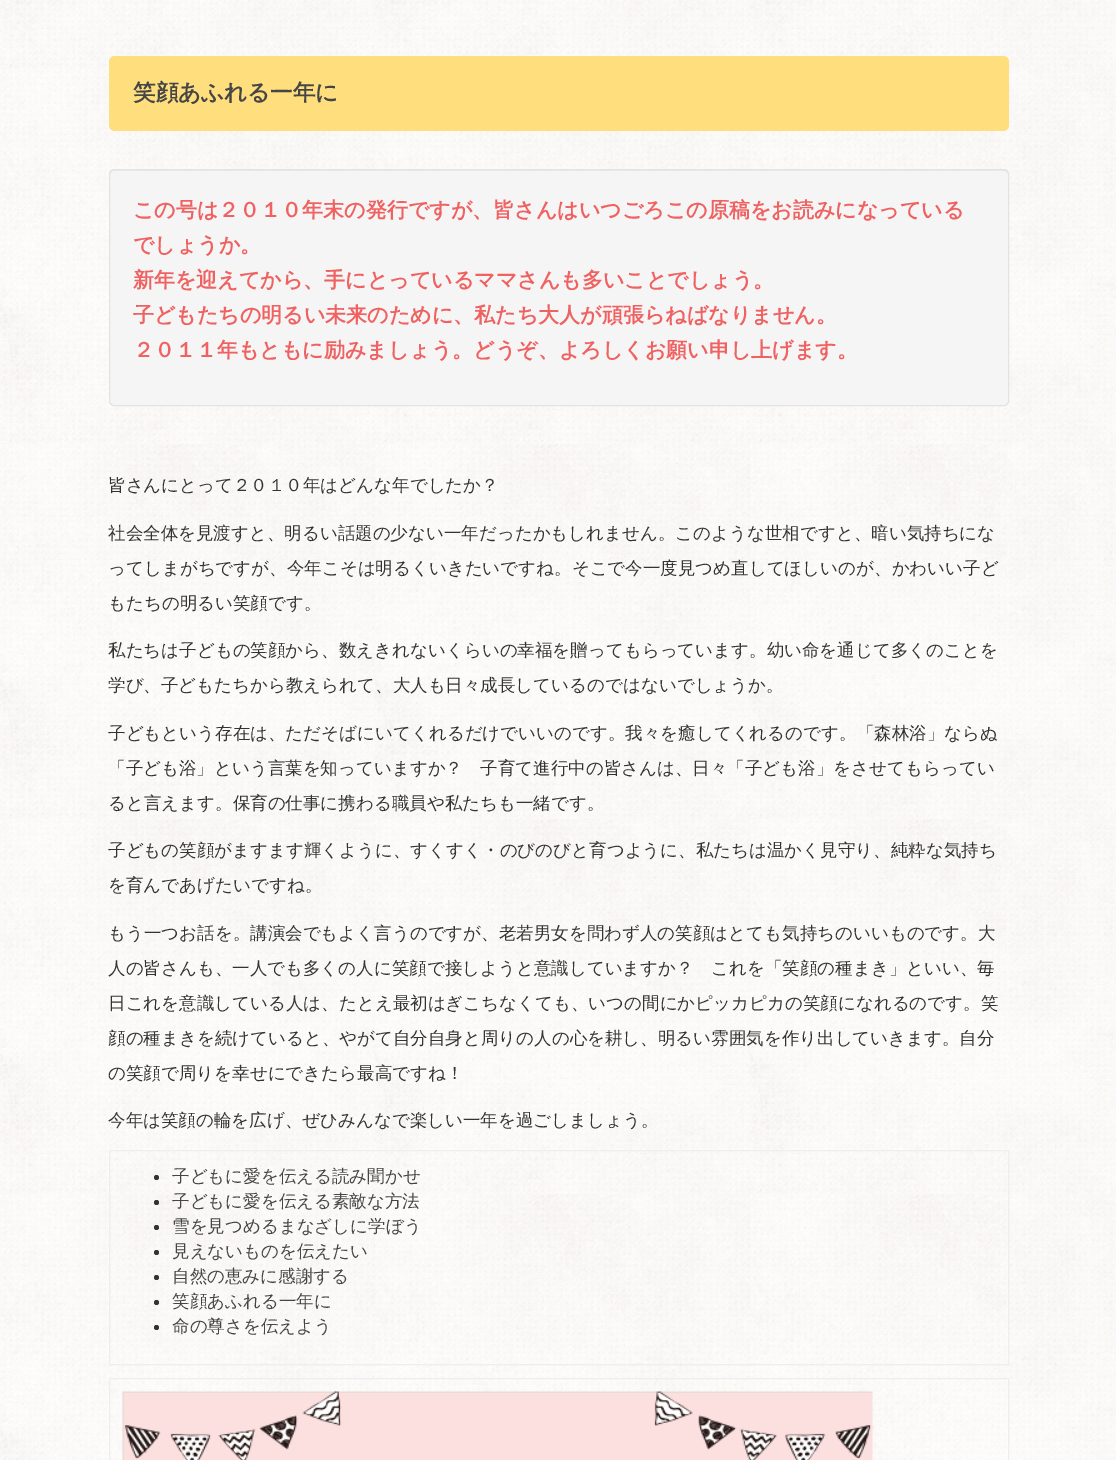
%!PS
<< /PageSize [1116 1460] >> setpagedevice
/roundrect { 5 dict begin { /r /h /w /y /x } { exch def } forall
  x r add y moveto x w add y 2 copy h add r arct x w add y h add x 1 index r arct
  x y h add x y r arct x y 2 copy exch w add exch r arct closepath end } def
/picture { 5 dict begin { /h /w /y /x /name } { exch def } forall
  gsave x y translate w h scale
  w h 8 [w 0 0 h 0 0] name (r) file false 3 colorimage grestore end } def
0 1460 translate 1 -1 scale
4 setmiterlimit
1 setgray
0 0 1116 1460 rectfill
(img1.rgb) 0 0 1116 1460 picture
1 0.871 0.49 setrgbcolor
109 56 900 75 6 roundrect fill
/WenQuanYiZenHei-Bold [22.5 0 0 -22.5 0 0] selectfont
0.271 setgray
133 100 moveto (笑顔あふれる一年に) show
0.961 setgray
109 169 900 237 5 roundrect fill
0.914 setgray
newpath 114 171 moveto 1004 171 lineto 1006 171 1008 173 1008 175 curveto 1008 172 1007 170 1004 170 curveto 114 170 lineto 111 170 110 172 110 175 curveto 110 173 112 171 114 171 curveto closepath fill
0.89 setgray
109.5 169.5 899 236 4.5 roundrect stroke
/WenQuanYiZenHei-Bold [21 0 0 -21 0 0] selectfont
0.941 0.38 0.38 setrgbcolor
133 217 moveto (この号は２０１０年末の発行ですが、皆さんはいつごろこの原稿をお読みになっている) show
133 252 moveto (でしょうか。) show
133 287 moveto (新年を迎えてから、手にとっているママさんも多いことでしょう。) show
133 322 moveto (子どもたちの明るい未来のために、私たち大人が頑張らねばなりません。) show
133 357 moveto (２０１１年もともに励みましょう。どうぞ、よろしくお願い申し上げます。) show
/WenQuanYiZenHei-Medium [17.5 0 0 -17.5 0 0] selectfont
0.2 setgray
108 491 moveto (皆さんにとって２０１０年はどんな年でしたか？) show
108 539 moveto (社会全体を見渡すと、明るい話題の少ない一年だったかもしれません。このような世相ですと、暗い気持ちにな) show
108 574 moveto (ってしまがちですが、今年こそは明るくいきたいですね。そこで今一度見つめ直してほしいのが、かわいい子ど) show
108 609 moveto (もたちの明るい笑顔です。) show
108 656 moveto (私たちは子どもの笑顔から、数えきれないくらいの幸福を贈ってもらっています。幼い命を通じて多くのことを) show
108 691 moveto (学び、子どもたちから教えられて、大人も日々成長しているのではないでしょうか。) show
108 739 moveto (子どもという存在は、ただそばにいてくれるだけでいいのです。我々を癒してくれるのです。「森林浴」ならぬ) show
108 774 moveto (「子ども浴」という言葉を知っていますか？　子育て進行中の皆さんは、日々「子ども浴」をさせてもらってい) show
108 809 moveto (ると言えます。保育の仕事に携わる職員や私たちも一緒です。) show
108 856 moveto (子どもの笑顔がますます輝くように、すくすく・のびのびと育つように、私たちは温かく見守り、純粋な気持ち) show
108 891 moveto (を育んであげたいですね。) show
108 939 moveto (もう一つお話を。講演会でもよく言うのですが、老若男女を問わず人の笑顔はとても気持ちのいいものです。大) show
108 974 moveto (人の皆さんも、一人でも多くの人に笑顔で接しようと意識していますか？　これを「笑顔の種まき」といい、毎) show
108 1009 moveto (日これを意識している人は、たとえ最初はぎこちなくても、いつの間にかピッカピカの笑顔になれるのです。笑) show
108 1044 moveto (顔の種まきを続けていると、やがて自分自身と周りの人の心を耕し、明るい雰囲気を作り出していきます。自分) show
108 1079 moveto (の笑顔で周りを幸せにできたら最高ですね！) show
108 1126 moveto (今年は笑顔の輪を広げ、ぜひみんなで楽しい一年を過ごしましょう。) show
0.933 setgray
109.5 1150.5 899 214 rectstroke
0.2 setgray
newpath 156.5 1177.5 2.5 0 360 arc closepath fill
0.271 setgray
172 1182 moveto (子どもに愛を伝える読み聞かせ) show
0.2 setgray
newpath 156.5 1202.5 2.5 0 360 arc closepath fill
0.271 setgray
172 1207 moveto (子どもに愛を伝える素敵な方法) show
0.2 setgray
newpath 156.5 1227.5 2.5 0 360 arc closepath fill
0.271 setgray
172 1232 moveto (雪を見つめるまなざしに学ぼう) show
0.2 setgray
newpath 156.5 1252.5 2.5 0 360 arc closepath fill
0.271 setgray
172 1257 moveto (見えないものを伝えたい) show
0.2 setgray
newpath 156.5 1277.5 2.5 0 360 arc closepath fill
0.271 setgray
172 1282 moveto (自然の恵みに感謝する) show
0.2 setgray
newpath 156.5 1302.5 2.5 0 360 arc closepath fill
0.271 setgray
172 1307 moveto (笑顔あふれる一年に) show
0.2 setgray
newpath 156.5 1327.5 2.5 0 360 arc closepath fill
0.271 setgray
172 1332 moveto (命の尊さを伝えよう) show
0.933 setgray
109.5 1378.5 899 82 rectstroke
(img2.rgb) 122 1391 751 69 picture
showpage
